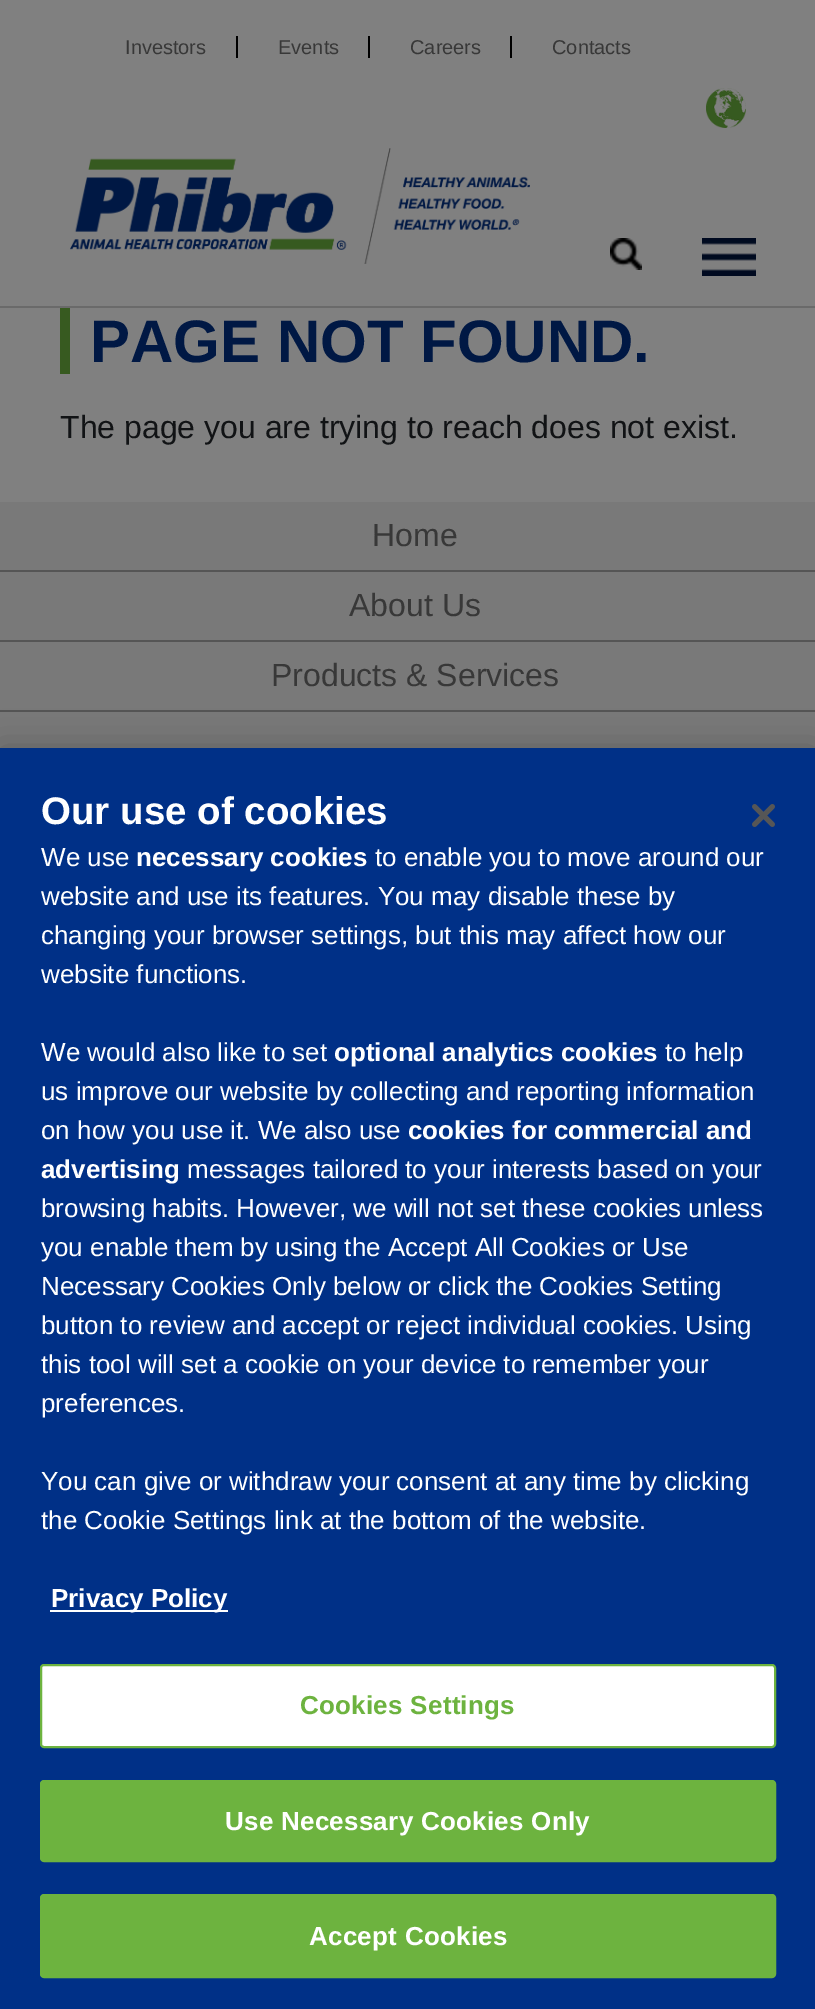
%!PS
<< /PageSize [815 2009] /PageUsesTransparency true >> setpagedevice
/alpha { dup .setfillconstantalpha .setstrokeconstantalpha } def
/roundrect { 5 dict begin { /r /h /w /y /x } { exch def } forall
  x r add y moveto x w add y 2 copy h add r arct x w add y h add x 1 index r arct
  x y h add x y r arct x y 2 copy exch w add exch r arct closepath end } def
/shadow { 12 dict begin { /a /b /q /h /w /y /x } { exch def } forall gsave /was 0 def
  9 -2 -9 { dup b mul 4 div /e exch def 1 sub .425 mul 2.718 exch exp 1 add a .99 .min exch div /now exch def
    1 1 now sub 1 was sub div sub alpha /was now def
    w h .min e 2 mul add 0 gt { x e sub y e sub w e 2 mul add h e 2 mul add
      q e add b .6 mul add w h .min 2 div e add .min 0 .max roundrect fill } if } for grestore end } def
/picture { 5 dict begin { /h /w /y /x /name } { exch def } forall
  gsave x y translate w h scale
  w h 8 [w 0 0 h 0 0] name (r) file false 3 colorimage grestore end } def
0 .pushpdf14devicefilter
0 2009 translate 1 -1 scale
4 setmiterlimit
0.502 setgray
0 0 815 2009 rectfill
/LiberationSans-Regular [20 0 0 -20 0 0] selectfont
0.22 setgray
125 54 moveto (Investors) show
0 setgray
236 36 2 22 rectfill
0.22 setgray
278 54 moveto (Events) show
0 setgray
368 36 2 22 rectfill
0.22 setgray
410 54 moveto (Careers) show
0 setgray
510 36 2 22 rectfill
0.22 setgray
552 54 moveto (Contacts) show
(img1.rgb) 706 88 40 40 picture
(img2.rgb) 70 148 460 116 picture
(img3.rgb) 610 238 32 32 picture
(img4.rgb) 702 238 54 38 picture
0.416 setgray
0 306 815 2 rectfill
0.216 0.353 0.125 setrgbcolor
60 308 10 66 rectfill
/LiberationSans-Bold [60 0 0 -60 0 0] selectfont
0 0.094 0.267 setrgbcolor
90 362 moveto (PAGE NOT FOUND.) show
/LiberationSans-Regular [32 0 0 -32 0 0] selectfont
0.067 0.075 0.082 setrgbcolor
60 438 moveto (The page you are trying to reach does not exist.) show
0.475 setgray
0 502 815 68 rectfill
0.333 setgray
0 570 815 2 rectfill
0.22 setgray
372 546 moveto (Home) show
0.475 setgray
0 572 815 68 rectfill
0.333 setgray
0 640 815 2 rectfill
0.22 setgray
349 616 moveto (About Us) show
0.475 setgray
0 642 815 68 rectfill
0.333 setgray
0 710 815 2 rectfill
0.22 setgray
271 686 moveto (Products & Services) show
0.475 setgray
0 712 815 36 rectfill
0 setgray
0 748 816 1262 0 18 0.2 shadow
0 0.188 0.529 setrgbcolor
0 748 815 1261 rectfill
/LiberationSans-Bold [38.5 0 0 -38.5 0 0] selectfont
1 setgray
41 824 moveto (Our use of cookies) show
(img5.rgb) 752 804 23 23 picture
/LiberationSans-Regular [26 0 0 -26 0 0] selectfont
41 866 moveto (We use) show
/LiberationSans-Bold [26 0 0 -26 0 0] selectfont
136 866 moveto (necessary cookies) show
/LiberationSans-Regular [26 0 0 -26 0 0] selectfont
375 866 moveto (to enable you to move around our) show
41 905 moveto (website and use its features. You may disable these by) show
41 944 moveto (changing your browser settings, but this may affect how our) show
41 983 moveto (website functions.) show
41 1061 moveto (We would also like to set) show
/LiberationSans-Bold [26 0 0 -26 0 0] selectfont
334 1061 moveto (optional analytics cookies) show
/LiberationSans-Regular [26 0 0 -26 0 0] selectfont
665 1061 moveto (to help) show
41 1100 moveto (us improve our website by collecting and reporting information) show
41 1139 moveto (on how you use it. We also use) show
/LiberationSans-Bold [26 0 0 -26 0 0] selectfont
408 1139 moveto (cookies for commercial and) show
41 1178 moveto (advertising) show
/LiberationSans-Regular [26 0 0 -26 0 0] selectfont
187 1178 moveto (messages tailored to your interests based on your) show
41 1217 moveto (browsing habits. However, we will not set these cookies unless) show
41 1256 moveto (you enable them by using the Accept All Cookies or Use) show
41 1295 moveto (Necessary Cookies Only below or click the Cookies Setting) show
41 1334 moveto (button to review and accept or reject individual cookies.) show
685 1334 moveto (Using) show
41 1373 moveto (this tool will set a cookie on your device to remember your) show
41 1412 moveto (preferences.) show
41 1490 moveto (You can give or withdraw your consent at any time by clicking) show
41 1529 moveto (the Cookie Settings link at the bottom of the website.) show
50 1610 178 2 rectfill
/LiberationSans-Bold [26 0 0 -26 0 0] selectfont
51 1607 moveto (Privacy Policy) show
41 1665 734 82 3 roundrect gsave fill grestore
0.427 0.702 0.247 setrgbcolor
2 setlinewidth
stroke
300 1714 moveto 0.25 0 (Cookies Settings) ashow
41 1781 734 80 3 roundrect gsave fill grestore
stroke
1 setgray
225 1830 moveto 0.25 0 (Use Necessary Cookies Only) ashow
0.427 0.702 0.247 setrgbcolor
41 1895 734 82 3 roundrect gsave fill grestore
stroke
1 setgray
309 1945 moveto 0.25 0 (Accept Cookies) ashow
.poppdf14devicefilter showpage
